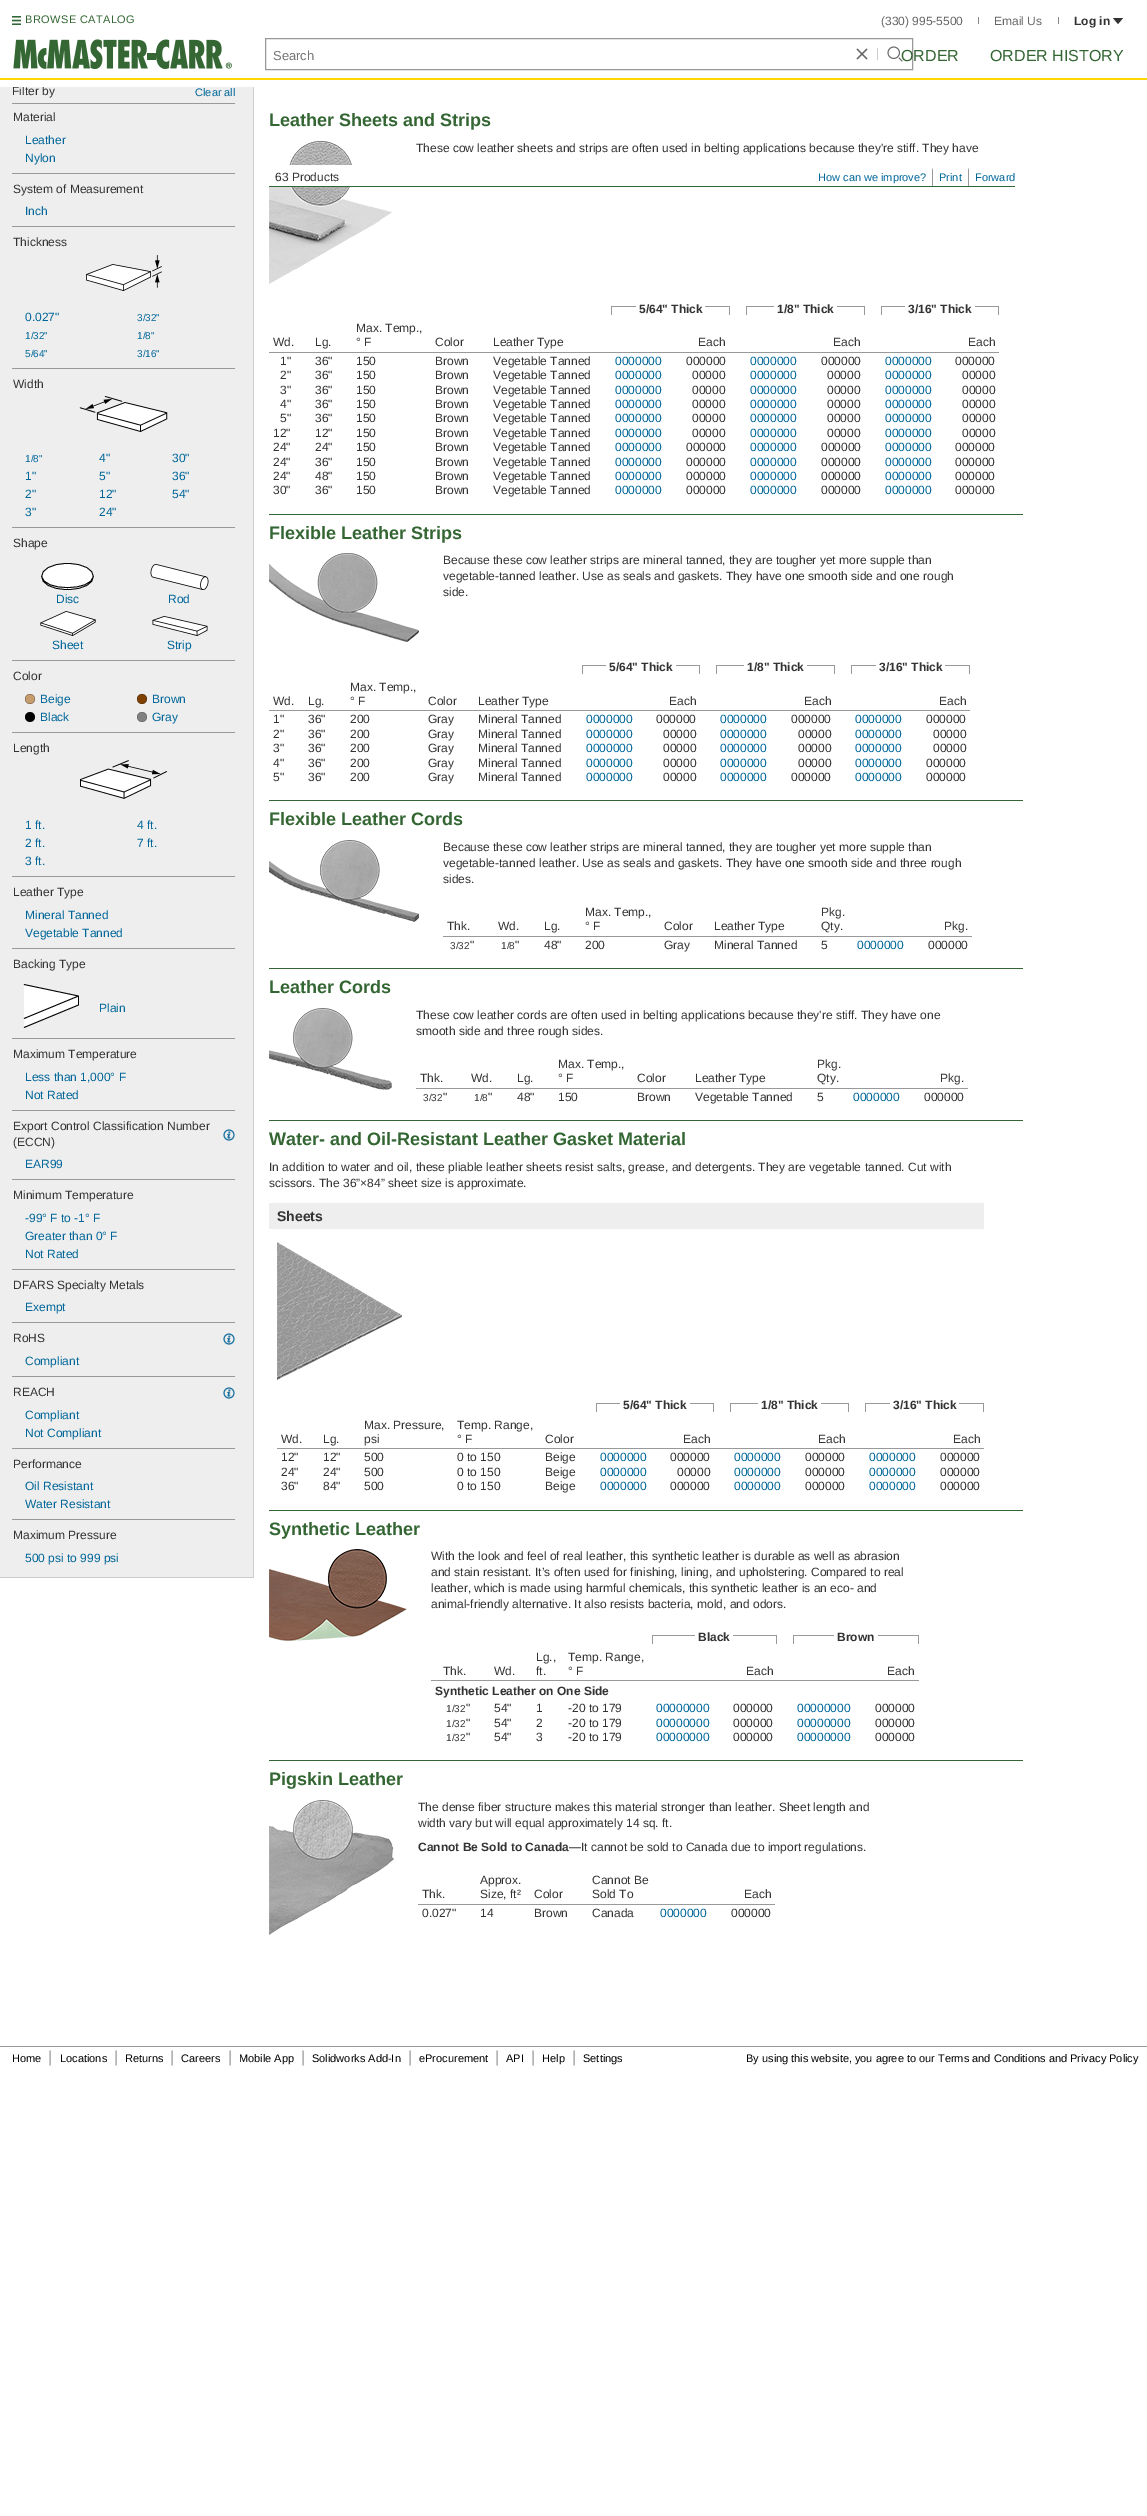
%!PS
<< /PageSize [1147 2516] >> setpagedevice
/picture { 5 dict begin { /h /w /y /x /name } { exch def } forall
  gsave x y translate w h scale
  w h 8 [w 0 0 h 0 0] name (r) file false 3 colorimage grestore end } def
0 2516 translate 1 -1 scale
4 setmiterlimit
1 setgray
0 0 1147 2516 rectfill
0.8 setgray
253 80 1 1498 rectfill
0.933 setgray
0 87 253 1490 rectfill
/LiberationSans-Regular [12 0 0 -12 0 0] selectfont
0.2 setgray
12 95 moveto (Filter by) show
1 setgray
13 80 241 7 rectfill
0.996 0.843 0 setrgbcolor
0 78 1147 2 rectfill
(img1.rgb) 12 16 9 9 picture
/LiberationSans-Regular [11 0 0 -11 0 0] selectfont
0.2 0.4 0.2 setrgbcolor
25 23 moveto 0.4 0 (BROWSE CATALOG) ashow
/LiberationSans-Regular [12 0 0 -12 0 0] selectfont
0.4 setgray
881 25 moveto (\(330\) 995-5500) show
0.529 setgray
978 17 1 7 rectfill
0.4 setgray
994 25 moveto (Email Us) show
0.529 setgray
1058 17 1 7 rectfill
/LiberationSans-Bold [12 0 0 -12 0 0] selectfont
0.2 setgray
1074 25 moveto (Log in) show
newpath 1113 18 moveto 1118 24 lineto 1123 18 lineto closepath fill
(img2.rgb) 13 39 219 30 picture
0.6 setgray
265.5 38.5 647 31 rectstroke
/LiberationSans-Regular [13 0 0 -13 0 0] selectfont
0.459 setgray
273 60 moveto (Search) show
0.4 setgray
1.2 setlinewidth
newpath 857 49 moveto 867 59 lineto 867 49 moveto 857 59 lineto stroke
0.796 setgray
877 48 1 12 rectfill
(img3.rgb) 887 46 16 16 picture
/LiberationSans-Regular [16 0 0 -16 0 0] selectfont
0.2 0.4 0.2 setrgbcolor
901 61 moveto (ORDER) show
990 61 moveto (ORDER HISTORY) show
0.8 setgray
0 1577 254 1 rectfill
0.6 setgray
12 103 223 1 rectfill
/LiberationSans-Regular [11 0 0 -11 0 0] selectfont
0 0.4 0.6 setrgbcolor
195 96 moveto (Clear all) show
/LiberationSans-Regular [12 0 0 -12 0 0] selectfont
0.2 setgray
13 121 moveto (Material) show
0 0.4 0.6 setrgbcolor
25 144 moveto (Leather) show
25 162 moveto (Nylon) show
0.6 setgray
12 173 223 1 rectfill
0.2 setgray
13 193 moveto (System of Measurement) show
0 0.4 0.6 setrgbcolor
25 215 moveto (Inch) show
0.6 setgray
12 226 223 1 rectfill
0.2 setgray
13 246 moveto (Thickness) show
(img4.rgb) 86 255 76 36 picture
0 0.4 0.6 setrgbcolor
25 321 moveto (0.027") show
/LiberationSans-Regular [10 0 0 -10 0 0] selectfont
25 339 moveto (1/32") show
25 357 moveto (5/64") show
137 321 moveto (3/32") show
137 339 moveto (1/8") show
137 357 moveto (3/16") show
0.6 setgray
12 368 223 1 rectfill
/LiberationSans-Regular [12 0 0 -12 0 0] selectfont
0.2 setgray
13 388 moveto (Width) show
(img5.rgb) 79 396 89 36 picture
/LiberationSans-Regular [10 0 0 -10 0 0] selectfont
0 0.4 0.6 setrgbcolor
25 462 moveto (1/8") show
/LiberationSans-Regular [12 0 0 -12 0 0] selectfont
25 480 moveto (1") show
25 498 moveto (2") show
25 516 moveto (3") show
99 462 moveto (4") show
99 480 moveto (5") show
99 498 moveto (12") show
99 516 moveto (24") show
172 462 moveto (30") show
172 480 moveto (36") show
172 498 moveto (54") show
0.6 setgray
12 527 223 1 rectfill
0.2 setgray
13 547 moveto (Shape) show
1 setgray
newpath 68 563 moveto 33 563 33 590 68 590 curveto 102 590 102 563 68 563 curveto closepath fill
0 setgray
0.8 setlinewidth
newpath 67.5 563.5 moveto 33 563.5 33 589.5 67.5 589.5 curveto 102 589.5 102 563.5 67.5 563.5 curveto closepath 42 576 moveto 42 591.5 93 591.5 93 576 curveto stroke
0 0.4 0.6 setrgbcolor
56 603 moveto (Disc) show
(img6.rgb) 150 564 59 26 picture
168 603 moveto (Rod) show
(img7.rgb) 40 611 56 25 picture
52 649 moveto (Sheet) show
(img8.rgb) 152 616 56 20 picture
167 649 moveto (Strip) show
0.6 setgray
12 660 223 1 rectfill
0.2 setgray
13 680 moveto (Color) show
(img9.rgb) 25 694 10 10 picture
0 0.4 0.6 setrgbcolor
40 703 moveto (Beige) show
(img10.rgb) 25 712 10 10 picture
40 721 moveto (Black) show
(img11.rgb) 137 694 10 10 picture
152 703 moveto (Brown) show
(img12.rgb) 137 712 10 10 picture
152 721 moveto (Gray) show
0.6 setgray
12 732 223 1 rectfill
0.2 setgray
13 752 moveto (Length) show
(img13.rgb) 80 760 87 39 picture
0 0.4 0.6 setrgbcolor
25 829 moveto (1 ft.) show
25 847 moveto (2 ft.) show
25 865 moveto (3 ft.) show
137 829 moveto (4 ft.) show
137 847 moveto (7 ft.) show
0.6 setgray
12 876 223 1 rectfill
0.2 setgray
13 896 moveto (Leather Type) show
0 0.4 0.6 setrgbcolor
25 919 moveto (Mineral Tanned) show
25 937 moveto (Vegetable Tanned) show
0.6 setgray
12 948 223 1 rectfill
0.2 setgray
13 968 moveto (Backing Type) show
1 setgray
newpath 24 1027 moveto 79 1005 lineto 79 996 lineto 24 985 lineto fill
0 setgray
newpath 24 1027.5 moveto 78.5 1005 lineto 78.5 996 lineto 24 984.5 lineto 24 1018.5 moveto 78.5 996 lineto stroke
0 0.4 0.6 setrgbcolor
99 1012 moveto (Plain) show
0.6 setgray
12 1038 223 1 rectfill
0.2 setgray
13 1058 moveto (Maximum Temperature) show
0 0.4 0.6 setrgbcolor
25 1081 moveto (Less than 1,000° F) show
25 1099 moveto (Not Rated) show
0.6 setgray
12 1110 223 1 rectfill
0.2 setgray
13 1130 moveto (Export Control Classification Number) show
13 1146 moveto (\(ECCN\)) show
(img14.rgb) 223 1129 12 12 picture
0 0.4 0.6 setrgbcolor
25 1168 moveto (EAR99) show
0.6 setgray
12 1179 223 1 rectfill
0.2 setgray
13 1199 moveto (Minimum Temperature) show
0 0.4 0.6 setrgbcolor
25 1222 moveto (-99° F to -1° F) show
25 1240 moveto (Greater than 0° F) show
25 1258 moveto (Not Rated) show
0.6 setgray
12 1269 223 1 rectfill
0.2 setgray
13 1289 moveto (DFARS Specialty Metals) show
0 0.4 0.6 setrgbcolor
25 1311 moveto (Exempt) show
0.6 setgray
12 1322 223 1 rectfill
0.2 setgray
13 1342 moveto (RoHS) show
(img14.rgb) 223 1333 12 12 picture
0 0.4 0.6 setrgbcolor
25 1365 moveto (Compliant) show
0.6 setgray
12 1376 223 1 rectfill
0.2 setgray
13 1396 moveto (REACH) show
(img14.rgb) 223 1387 12 12 picture
0 0.4 0.6 setrgbcolor
25 1419 moveto (Compliant) show
25 1437 moveto (Not Compliant) show
0.6 setgray
12 1448 223 1 rectfill
0.2 setgray
13 1468 moveto (Performance) show
0 0.4 0.6 setrgbcolor
25 1490 moveto (Oil Resistant) show
25 1508 moveto (Water Resistant) show
0.6 setgray
12 1519 223 1 rectfill
0.2 setgray
13 1539 moveto (Maximum Pressure) show
0 0.4 0.6 setrgbcolor
25 1562 moveto (500 psi to 999 psi) show
/LiberationSans-Bold [18 0 0 -18 0 0] selectfont
0.2 0.4 0.2 setrgbcolor
269 126 moveto (Leather Sheets and Strips) show
(img15.rgb) 269 141 123 143 picture
/LiberationSans-Regular [12 0 0 -12 0 0] selectfont
0.2 setgray
416 152 moveto (These cow leather sheets and strips are often used in belting applications because they're stiff. They have) show
0.6 setgray
611 306 119 1 rectfill
1 setgray
636 306 69 1 rectfill
/LiberationSans-Bold [12 0 0 -12 0 0] selectfont
0.2 setgray
639 313 moveto (5/64" Thick) show
0.6 setgray
729 306 1 9 rectfill
611 306 1 9 rectfill
746 306 119 1 rectfill
1 setgray
774 306 63 1 rectfill
0.2 setgray
777 313 moveto (1/8" Thick) show
0.6 setgray
864 306 1 9 rectfill
746 306 1 9 rectfill
881 306 118 1 rectfill
1 setgray
905 306 70 1 rectfill
0.2 setgray
908 313 moveto (3/16" Thick) show
0.6 setgray
998 306 1 9 rectfill
881 306 1 9 rectfill
269 352 730 1 rectfill
/LiberationSans-Regular [12 0 0 -12 0 0] selectfont
0.2 setgray
273 346 moveto (Wd.) show
315 346 moveto (Lg.) show
356 332 moveto (Max. Temp.,) show
356 346 moveto (° F) show
435 346 moveto (Color) show
493 346 moveto (Leather Type) show
698 346 moveto (Each) show
833 346 moveto (Each) show
968 346 moveto (Each) show
280 365 moveto (1") show
315 365 moveto (36") show
356 365 moveto (150) show
435 365 moveto (Brown) show
493 365 moveto (Vegetable Tanned) show
0 0.4 0.6 setrgbcolor
615 365 moveto (0000000) show
0.2 setgray
686 365 moveto (000000) show
0 0.4 0.6 setrgbcolor
750 365 moveto (0000000) show
0.2 setgray
821 365 moveto (000000) show
0 0.4 0.6 setrgbcolor
885 365 moveto (0000000) show
0.2 setgray
955 365 moveto (000000) show
280 379 moveto (2") show
315 379 moveto (36") show
356 379 moveto (150) show
435 379 moveto (Brown) show
493 379 moveto (Vegetable Tanned) show
0 0.4 0.6 setrgbcolor
615 379 moveto (0000000) show
0.2 setgray
692 379 moveto (00000) show
0 0.4 0.6 setrgbcolor
750 379 moveto (0000000) show
0.2 setgray
827 379 moveto (00000) show
0 0.4 0.6 setrgbcolor
885 379 moveto (0000000) show
0.2 setgray
962 379 moveto (00000) show
280 394 moveto (3") show
315 394 moveto (36") show
356 394 moveto (150) show
435 394 moveto (Brown) show
493 394 moveto (Vegetable Tanned) show
0 0.4 0.6 setrgbcolor
615 394 moveto (0000000) show
0.2 setgray
692 394 moveto (00000) show
0 0.4 0.6 setrgbcolor
750 394 moveto (0000000) show
0.2 setgray
827 394 moveto (00000) show
0 0.4 0.6 setrgbcolor
885 394 moveto (0000000) show
0.2 setgray
962 394 moveto (00000) show
280 408 moveto (4") show
315 408 moveto (36") show
356 408 moveto (150) show
435 408 moveto (Brown) show
493 408 moveto (Vegetable Tanned) show
0 0.4 0.6 setrgbcolor
615 408 moveto (0000000) show
0.2 setgray
692 408 moveto (00000) show
0 0.4 0.6 setrgbcolor
750 408 moveto (0000000) show
0.2 setgray
827 408 moveto (00000) show
0 0.4 0.6 setrgbcolor
885 408 moveto (0000000) show
0.2 setgray
962 408 moveto (00000) show
280 422 moveto (5") show
315 422 moveto (36") show
356 422 moveto (150) show
435 422 moveto (Brown) show
493 422 moveto (Vegetable Tanned) show
0 0.4 0.6 setrgbcolor
615 422 moveto (0000000) show
0.2 setgray
692 422 moveto (00000) show
0 0.4 0.6 setrgbcolor
750 422 moveto (0000000) show
0.2 setgray
827 422 moveto (00000) show
0 0.4 0.6 setrgbcolor
885 422 moveto (0000000) show
0.2 setgray
962 422 moveto (00000) show
273 437 moveto (12") show
315 437 moveto (12") show
356 437 moveto (150) show
435 437 moveto (Brown) show
493 437 moveto (Vegetable Tanned) show
0 0.4 0.6 setrgbcolor
615 437 moveto (0000000) show
0.2 setgray
692 437 moveto (00000) show
0 0.4 0.6 setrgbcolor
750 437 moveto (0000000) show
0.2 setgray
827 437 moveto (00000) show
0 0.4 0.6 setrgbcolor
885 437 moveto (0000000) show
0.2 setgray
962 437 moveto (00000) show
273 451 moveto (24") show
315 451 moveto (24") show
356 451 moveto (150) show
435 451 moveto (Brown) show
493 451 moveto (Vegetable Tanned) show
0 0.4 0.6 setrgbcolor
615 451 moveto (0000000) show
0.2 setgray
686 451 moveto (000000) show
0 0.4 0.6 setrgbcolor
750 451 moveto (0000000) show
0.2 setgray
821 451 moveto (000000) show
0 0.4 0.6 setrgbcolor
885 451 moveto (0000000) show
0.2 setgray
955 451 moveto (000000) show
273 466 moveto (24") show
315 466 moveto (36") show
356 466 moveto (150) show
435 466 moveto (Brown) show
493 466 moveto (Vegetable Tanned) show
0 0.4 0.6 setrgbcolor
615 466 moveto (0000000) show
0.2 setgray
686 466 moveto (000000) show
0 0.4 0.6 setrgbcolor
750 466 moveto (0000000) show
0.2 setgray
821 466 moveto (000000) show
0 0.4 0.6 setrgbcolor
885 466 moveto (0000000) show
0.2 setgray
955 466 moveto (000000) show
273 480 moveto (24") show
315 480 moveto (48") show
356 480 moveto (150) show
435 480 moveto (Brown) show
493 480 moveto (Vegetable Tanned) show
0 0.4 0.6 setrgbcolor
615 480 moveto (0000000) show
0.2 setgray
686 480 moveto (000000) show
0 0.4 0.6 setrgbcolor
750 480 moveto (0000000) show
0.2 setgray
821 480 moveto (000000) show
0 0.4 0.6 setrgbcolor
885 480 moveto (0000000) show
0.2 setgray
955 480 moveto (000000) show
273 494 moveto (30") show
315 494 moveto (36") show
356 494 moveto (150) show
435 494 moveto (Brown) show
493 494 moveto (Vegetable Tanned) show
0 0.4 0.6 setrgbcolor
615 494 moveto (0000000) show
0.2 setgray
686 494 moveto (000000) show
0 0.4 0.6 setrgbcolor
750 494 moveto (0000000) show
0.2 setgray
821 494 moveto (000000) show
0 0.4 0.6 setrgbcolor
885 494 moveto (0000000) show
0.2 setgray
955 494 moveto (000000) show
0.2 0.4 0.2 setrgbcolor
269 514 754 1 rectfill
/LiberationSans-Bold [18 0 0 -18 0 0] selectfont
269 539 moveto (Flexible Leather Strips) show
(img16.rgb) 269 553 150 89 picture
/LiberationSans-Regular [12 0 0 -12 0 0] selectfont
0.2 setgray
443 564 moveto (Because these cow leather strips are mineral tanned, they are tougher yet more supple than) show
443 580 moveto (vegetable-tanned leather. Use as seals and gaskets. They have one smooth side and one rough) show
443 596 moveto (side.) show
0.6 setgray
582 665 118 1 rectfill
1 setgray
606 665 70 1 rectfill
/LiberationSans-Bold [12 0 0 -12 0 0] selectfont
0.2 setgray
609 671 moveto (5/64" Thick) show
0.6 setgray
699 665 1 9 rectfill
582 665 1 9 rectfill
716 665 119 1 rectfill
1 setgray
744 665 63 1 rectfill
0.2 setgray
747 671 moveto (1/8" Thick) show
0.6 setgray
834 665 1 9 rectfill
716 665 1 9 rectfill
851 665 119 1 rectfill
1 setgray
876 665 69 1 rectfill
0.2 setgray
879 671 moveto (3/16" Thick) show
0.6 setgray
969 665 1 9 rectfill
851 665 1 9 rectfill
269 710 701 1 rectfill
/LiberationSans-Regular [12 0 0 -12 0 0] selectfont
0.2 setgray
273 705 moveto (Wd.) show
308 705 moveto (Lg.) show
350 691 moveto (Max. Temp.,) show
350 705 moveto (° F) show
428 705 moveto (Color) show
478 705 moveto (Leather Type) show
669 705 moveto (Each) show
804 705 moveto (Each) show
939 705 moveto (Each) show
273 723 moveto (1") show
308 723 moveto (36") show
350 723 moveto (200) show
428 723 moveto (Gray) show
478 723 moveto (Mineral Tanned) show
0 0.4 0.6 setrgbcolor
586 723 moveto (0000000) show
0.2 setgray
656 723 moveto (000000) show
0 0.4 0.6 setrgbcolor
720 723 moveto (0000000) show
0.2 setgray
791 723 moveto (000000) show
0 0.4 0.6 setrgbcolor
855 723 moveto (0000000) show
0.2 setgray
926 723 moveto (000000) show
273 738 moveto (2") show
308 738 moveto (36") show
350 738 moveto (200) show
428 738 moveto (Gray) show
478 738 moveto (Mineral Tanned) show
0 0.4 0.6 setrgbcolor
586 738 moveto (0000000) show
0.2 setgray
663 738 moveto (00000) show
0 0.4 0.6 setrgbcolor
720 738 moveto (0000000) show
0.2 setgray
798 738 moveto (00000) show
0 0.4 0.6 setrgbcolor
855 738 moveto (0000000) show
0.2 setgray
933 738 moveto (00000) show
273 752 moveto (3") show
308 752 moveto (36") show
350 752 moveto (200) show
428 752 moveto (Gray) show
478 752 moveto (Mineral Tanned) show
0 0.4 0.6 setrgbcolor
586 752 moveto (0000000) show
0.2 setgray
663 752 moveto (00000) show
0 0.4 0.6 setrgbcolor
720 752 moveto (0000000) show
0.2 setgray
798 752 moveto (00000) show
0 0.4 0.6 setrgbcolor
855 752 moveto (0000000) show
0.2 setgray
933 752 moveto (00000) show
273 767 moveto (4") show
308 767 moveto (36") show
350 767 moveto (200) show
428 767 moveto (Gray) show
478 767 moveto (Mineral Tanned) show
0 0.4 0.6 setrgbcolor
586 767 moveto (0000000) show
0.2 setgray
663 767 moveto (00000) show
0 0.4 0.6 setrgbcolor
720 767 moveto (0000000) show
0.2 setgray
798 767 moveto (00000) show
0 0.4 0.6 setrgbcolor
855 767 moveto (0000000) show
0.2 setgray
926 767 moveto (000000) show
273 781 moveto (5") show
308 781 moveto (36") show
350 781 moveto (200) show
428 781 moveto (Gray) show
478 781 moveto (Mineral Tanned) show
0 0.4 0.6 setrgbcolor
586 781 moveto (0000000) show
0.2 setgray
663 781 moveto (00000) show
0 0.4 0.6 setrgbcolor
720 781 moveto (0000000) show
0.2 setgray
791 781 moveto (000000) show
0 0.4 0.6 setrgbcolor
855 781 moveto (0000000) show
0.2 setgray
926 781 moveto (000000) show
0.2 0.4 0.2 setrgbcolor
269 800 754 1 rectfill
/LiberationSans-Bold [18 0 0 -18 0 0] selectfont
269 825 moveto (Flexible Leather Cords) show
(img17.rgb) 269 840 150 82 picture
/LiberationSans-Regular [12 0 0 -12 0 0] selectfont
0.2 setgray
443 851 moveto (Because these cow leather strips are mineral tanned, they are tougher yet more supple than) show
443 867 moveto (vegetable-tanned leather. Use as seals and gaskets. They have one smooth side and three rough) show
443 883 moveto (sides.) show
0.6 setgray
443 936 529 1 rectfill
0.2 setgray
447 930 moveto (Thk.) show
498 930 moveto (Wd.) show
544 930 moveto (Lg.) show
585 916 moveto (Max. Temp.,) show
585 930 moveto (° F) show
664 930 moveto (Color) show
714 930 moveto (Leather Type) show
821 916 moveto (Pkg.) show
821 930 moveto (Qty.) show
944 930 moveto (Pkg.) show
/LiberationSans-Regular [10 0 0 -10 0 0] selectfont
450 949 moveto (3/32) show
/LiberationSans-Regular [12 0 0 -12 0 0] selectfont
470 949 moveto (") show
/LiberationSans-Regular [10 0 0 -10 0 0] selectfont
501 949 moveto (1/8) show
/LiberationSans-Regular [12 0 0 -12 0 0] selectfont
515 949 moveto (") show
544 949 moveto (48") show
585 949 moveto (200) show
664 949 moveto (Gray) show
714 949 moveto (Mineral Tanned) show
821 949 moveto (5) show
0 0.4 0.6 setrgbcolor
857 949 moveto (0000000) show
0.2 setgray
928 949 moveto (000000) show
0.2 0.4 0.2 setrgbcolor
269 968 754 1 rectfill
/LiberationSans-Bold [18 0 0 -18 0 0] selectfont
269 993 moveto (Leather Cords) show
(img18.rgb) 269 1008 123 82 picture
/LiberationSans-Regular [12 0 0 -12 0 0] selectfont
0.2 setgray
416 1019 moveto (These cow leather cords are often used in belting applications because they're stiff. They have one) show
416 1035 moveto (smooth side and three rough sides.) show
0.6 setgray
416 1088 552 1 rectfill
0.2 setgray
420 1082 moveto (Thk.) show
471 1082 moveto (Wd.) show
517 1082 moveto (Lg.) show
558 1068 moveto (Max. Temp.,) show
558 1082 moveto (° F) show
637 1082 moveto (Color) show
695 1082 moveto (Leather Type) show
817 1068 moveto (Pkg.) show
817 1082 moveto (Qty.) show
940 1082 moveto (Pkg.) show
/LiberationSans-Regular [10 0 0 -10 0 0] selectfont
423 1101 moveto (3/32) show
/LiberationSans-Regular [12 0 0 -12 0 0] selectfont
443 1101 moveto (") show
/LiberationSans-Regular [10 0 0 -10 0 0] selectfont
474 1101 moveto (1/8) show
/LiberationSans-Regular [12 0 0 -12 0 0] selectfont
488 1101 moveto (") show
517 1101 moveto (48") show
558 1101 moveto (150) show
637 1101 moveto (Brown) show
695 1101 moveto (Vegetable Tanned) show
817 1101 moveto (5) show
0 0.4 0.6 setrgbcolor
853 1101 moveto (0000000) show
0.2 setgray
924 1101 moveto (000000) show
0.2 0.4 0.2 setrgbcolor
269 1120 754 1 rectfill
/LiberationSans-Bold [18 0 0 -18 0 0] selectfont
269 1145 moveto (Water- and Oil-Resistant Leather Gasket Material) show
/LiberationSans-Regular [12 0 0 -12 0 0] selectfont
0.2 setgray
269 1171 moveto (In addition to water and oil, these pliable leather sheets resist salts, grease, and detergents. They are vegetable tanned. Cut with) show
269 1187 moveto (scissors. The 36”×84” sheet size is approximate.) show
0.933 setgray
269 1203 715 26 rectfill
/LiberationSans-Bold [14 0 0 -14 0 0] selectfont
0.2 setgray
277 1221 moveto (Sheets) show
(img19.rgb) 277 1242 125 138 picture
0.6 setgray
596 1403 118 1 rectfill
1 setgray
620 1403 70 1 rectfill
/LiberationSans-Bold [12 0 0 -12 0 0] selectfont
0.2 setgray
623 1409 moveto (5/64" Thick) show
0.6 setgray
713 1403 1 9 rectfill
596 1403 1 9 rectfill
730 1403 119 1 rectfill
1 setgray
758 1403 63 1 rectfill
0.2 setgray
761 1409 moveto (1/8" Thick) show
0.6 setgray
848 1403 1 9 rectfill
730 1403 1 9 rectfill
865 1403 119 1 rectfill
1 setgray
890 1403 69 1 rectfill
0.2 setgray
893 1409 moveto (3/16" Thick) show
0.6 setgray
983 1403 1 9 rectfill
865 1403 1 9 rectfill
277 1448 707 1 rectfill
/LiberationSans-Regular [12 0 0 -12 0 0] selectfont
0.2 setgray
281 1443 moveto (Wd.) show
323 1443 moveto (Lg.) show
364 1429 moveto (Max. Pressure,) show
364 1443 moveto (psi) show
457 1429 moveto (Temp. Range,) show
457 1443 moveto (° F) show
545 1443 moveto (Color) show
683 1443 moveto (Each) show
818 1443 moveto (Each) show
953 1443 moveto (Each) show
281 1461 moveto (12") show
323 1461 moveto (12") show
364 1461 moveto (500) show
457 1461 moveto (0 to 150) show
545 1461 moveto (Beige) show
0 0.4 0.6 setrgbcolor
600 1461 moveto (0000000) show
0.2 setgray
670 1461 moveto (000000) show
0 0.4 0.6 setrgbcolor
734 1461 moveto (0000000) show
0.2 setgray
805 1461 moveto (000000) show
0 0.4 0.6 setrgbcolor
869 1461 moveto (0000000) show
0.2 setgray
940 1461 moveto (000000) show
281 1476 moveto (24") show
323 1476 moveto (24") show
364 1476 moveto (500) show
457 1476 moveto (0 to 150) show
545 1476 moveto (Beige) show
0 0.4 0.6 setrgbcolor
600 1476 moveto (0000000) show
0.2 setgray
677 1476 moveto (00000) show
0 0.4 0.6 setrgbcolor
734 1476 moveto (0000000) show
0.2 setgray
805 1476 moveto (000000) show
0 0.4 0.6 setrgbcolor
869 1476 moveto (0000000) show
0.2 setgray
940 1476 moveto (000000) show
281 1490 moveto (36") show
323 1490 moveto (84") show
364 1490 moveto (500) show
457 1490 moveto (0 to 150) show
545 1490 moveto (Beige) show
0 0.4 0.6 setrgbcolor
600 1490 moveto (0000000) show
0.2 setgray
670 1490 moveto (000000) show
0 0.4 0.6 setrgbcolor
734 1490 moveto (0000000) show
0.2 setgray
805 1490 moveto (000000) show
0 0.4 0.6 setrgbcolor
869 1490 moveto (0000000) show
0.2 setgray
940 1490 moveto (000000) show
0.2 0.4 0.2 setrgbcolor
269 1510 754 1 rectfill
/LiberationSans-Bold [18 0 0 -18 0 0] selectfont
269 1535 moveto (Synthetic Leather) show
(img20.rgb) 269 1549 138 92 picture
/LiberationSans-Regular [12 0 0 -12 0 0] selectfont
0.2 setgray
431 1560 moveto (With the look and feel of real leather, this synthetic leather is durable as well as abrasion) show
431 1576 moveto (and stain resistant. It’s often used for finishing, lining, and upholstering. Compared to real) show
431 1592 moveto (leather, which is made using harmful chemicals, this synthetic leather is an eco- and) show
431 1608 moveto (animal-friendly alternative. It also resists bacteria, mold, and odors.) show
0.6 setgray
652 1635 125 1 rectfill
1 setgray
695 1635 38 1 rectfill
/LiberationSans-Bold [12 0 0 -12 0 0] selectfont
0.2 setgray
698 1641 moveto (Black) show
0.6 setgray
776 1635 1 9 rectfill
652 1635 1 9 rectfill
793 1635 126 1 rectfill
1 setgray
834 1635 44 1 rectfill
0.2 setgray
837 1641 moveto (Brown) show
0.6 setgray
918 1635 1 9 rectfill
793 1635 1 9 rectfill
/LiberationSans-Regular [12 0 0 -12 0 0] selectfont
0.2 setgray
443 1675 moveto (Thk.) show
494 1675 moveto (Wd.) show
536 1661 moveto (Lg.,) show
536 1675 moveto (ft.) show
568 1661 moveto (Temp. Range,) show
568 1675 moveto (° F) show
746 1675 moveto (Each) show
887 1675 moveto (Each) show
0.6 setgray
431 1680 488 1 rectfill
/LiberationSans-Bold [12 0 0 -12 0 0] selectfont
0.2 setgray
435 1695 moveto (Synthetic Leather on One Side) show
/LiberationSans-Regular [10 0 0 -10 0 0] selectfont
446 1712 moveto (1/32) show
/LiberationSans-Regular [12 0 0 -12 0 0] selectfont
466 1712 moveto (") show
494 1712 moveto (54") show
536 1712 moveto (1) show
568 1712 moveto (-20 to 179) show
0 0.4 0.6 setrgbcolor
656 1712 moveto (00000000) show
0.2 setgray
733 1712 moveto (000000) show
0 0.4 0.6 setrgbcolor
797 1712 moveto (00000000) show
0.2 setgray
875 1712 moveto (000000) show
/LiberationSans-Regular [10 0 0 -10 0 0] selectfont
446 1727 moveto (1/32) show
/LiberationSans-Regular [12 0 0 -12 0 0] selectfont
466 1727 moveto (") show
494 1727 moveto (54") show
536 1727 moveto (2) show
568 1727 moveto (-20 to 179) show
0 0.4 0.6 setrgbcolor
656 1727 moveto (00000000) show
0.2 setgray
733 1727 moveto (000000) show
0 0.4 0.6 setrgbcolor
797 1727 moveto (00000000) show
0.2 setgray
875 1727 moveto (000000) show
/LiberationSans-Regular [10 0 0 -10 0 0] selectfont
446 1741 moveto (1/32) show
/LiberationSans-Regular [12 0 0 -12 0 0] selectfont
466 1741 moveto (") show
494 1741 moveto (54") show
536 1741 moveto (3) show
568 1741 moveto (-20 to 179) show
0 0.4 0.6 setrgbcolor
656 1741 moveto (00000000) show
0.2 setgray
733 1741 moveto (000000) show
0 0.4 0.6 setrgbcolor
797 1741 moveto (00000000) show
0.2 setgray
875 1741 moveto (000000) show
0.2 0.4 0.2 setrgbcolor
269 1760 754 1 rectfill
/LiberationSans-Bold [18 0 0 -18 0 0] selectfont
269 1785 moveto (Pigskin Leather) show
(img21.rgb) 269 1800 125 135 picture
/LiberationSans-Regular [12 0 0 -12 0 0] selectfont
0.2 setgray
418 1811 moveto (The dense fiber structure makes this material stronger than leather. Sheet length and) show
418 1827 moveto (width vary but will equal approximately 14 sq. ft.) show
/LiberationSans-Bold [12 0 0 -12 0 0] selectfont
418 1851 moveto (Cannot Be Sold to Canada—) show
/LiberationSans-Regular [12 0 0 -12 0 0] selectfont
581 1851 moveto (It cannot be sold to Canada due to import regulations.) show
0.6 setgray
418 1904 357 1 rectfill
0.2 setgray
422 1898 moveto (Thk.) show
480 1884 moveto (Approx.) show
480 1898 moveto (Size, ft²) show
534 1898 moveto (Color) show
592 1884 moveto (Cannot Be) show
592 1898 moveto (Sold To) show
744 1898 moveto (Each) show
422 1917 moveto (0.027") show
480 1917 moveto (14) show
534 1917 moveto (Brown) show
592 1917 moveto (Canada) show
0 0.4 0.6 setrgbcolor
660 1917 moveto (0000000) show
0.2 setgray
731 1917 moveto (000000) show
0.2 0.4 0.2 setrgbcolor
269 186 754 1 rectfill
1 setgray
269 165 84 21 rectfill
1015 186 8 1 rectfill
0.2 setgray
275 181 moveto (63 Products) show
0.6 setgray
newpath 933 168 moveto 933 186 lineto 932 186 lineto 932 170 lineto closepath fill
/LiberationSans-Regular [11 0 0 -11 0 0] selectfont
0 0.4 0.6 setrgbcolor
818 181 moveto (How can we improve?) show
0.6 setgray
newpath 969 168 moveto 969 186 lineto 968 186 lineto 968 170 lineto closepath fill
0 0.4 0.6 setrgbcolor
939 181 moveto (Print) show
975 181 moveto (Forward) show
0.6 setgray
0 2046 1147 1 rectfill
0 setgray
12 2062 moveto (Home) show
/LiberationSans-Regular [16 0 0 -16 0 0] selectfont
0.6 setgray
48 2062 moveto (|) show
/LiberationSans-Regular [11 0 0 -11 0 0] selectfont
0 setgray
60 2062 moveto (Locations) show
/LiberationSans-Regular [16 0 0 -16 0 0] selectfont
0.6 setgray
114 2062 moveto (|) show
/LiberationSans-Regular [11 0 0 -11 0 0] selectfont
0 setgray
125 2062 moveto (Returns) show
/LiberationSans-Regular [16 0 0 -16 0 0] selectfont
0.6 setgray
170 2062 moveto (|) show
/LiberationSans-Regular [11 0 0 -11 0 0] selectfont
0 setgray
181 2062 moveto (Careers) show
/LiberationSans-Regular [16 0 0 -16 0 0] selectfont
0.6 setgray
228 2062 moveto (|) show
/LiberationSans-Regular [11 0 0 -11 0 0] selectfont
0 setgray
239 2062 moveto (Mobile App) show
/LiberationSans-Regular [16 0 0 -16 0 0] selectfont
0.6 setgray
301 2062 moveto (|) show
/LiberationSans-Regular [11 0 0 -11 0 0] selectfont
0 setgray
312 2062 moveto (Solidworks Add-In) show
/LiberationSans-Regular [16 0 0 -16 0 0] selectfont
0.6 setgray
408 2062 moveto (|) show
/LiberationSans-Regular [11 0 0 -11 0 0] selectfont
0 setgray
419 2062 moveto (eProcurement) show
/LiberationSans-Regular [16 0 0 -16 0 0] selectfont
0.6 setgray
495 2062 moveto (|) show
/LiberationSans-Regular [11 0 0 -11 0 0] selectfont
0 setgray
506 2062 moveto (API) show
/LiberationSans-Regular [16 0 0 -16 0 0] selectfont
0.6 setgray
531 2062 moveto (|) show
/LiberationSans-Regular [11 0 0 -11 0 0] selectfont
0 setgray
542 2062 moveto (Help) show
/LiberationSans-Regular [16 0 0 -16 0 0] selectfont
0.6 setgray
572 2062 moveto (|) show
/LiberationSans-Regular [11 0 0 -11 0 0] selectfont
0 setgray
583 2062 moveto (Settings) show
746 2062 moveto (By using this website, you agree to our Terms and Conditions and Privacy Policy) show
showpage
